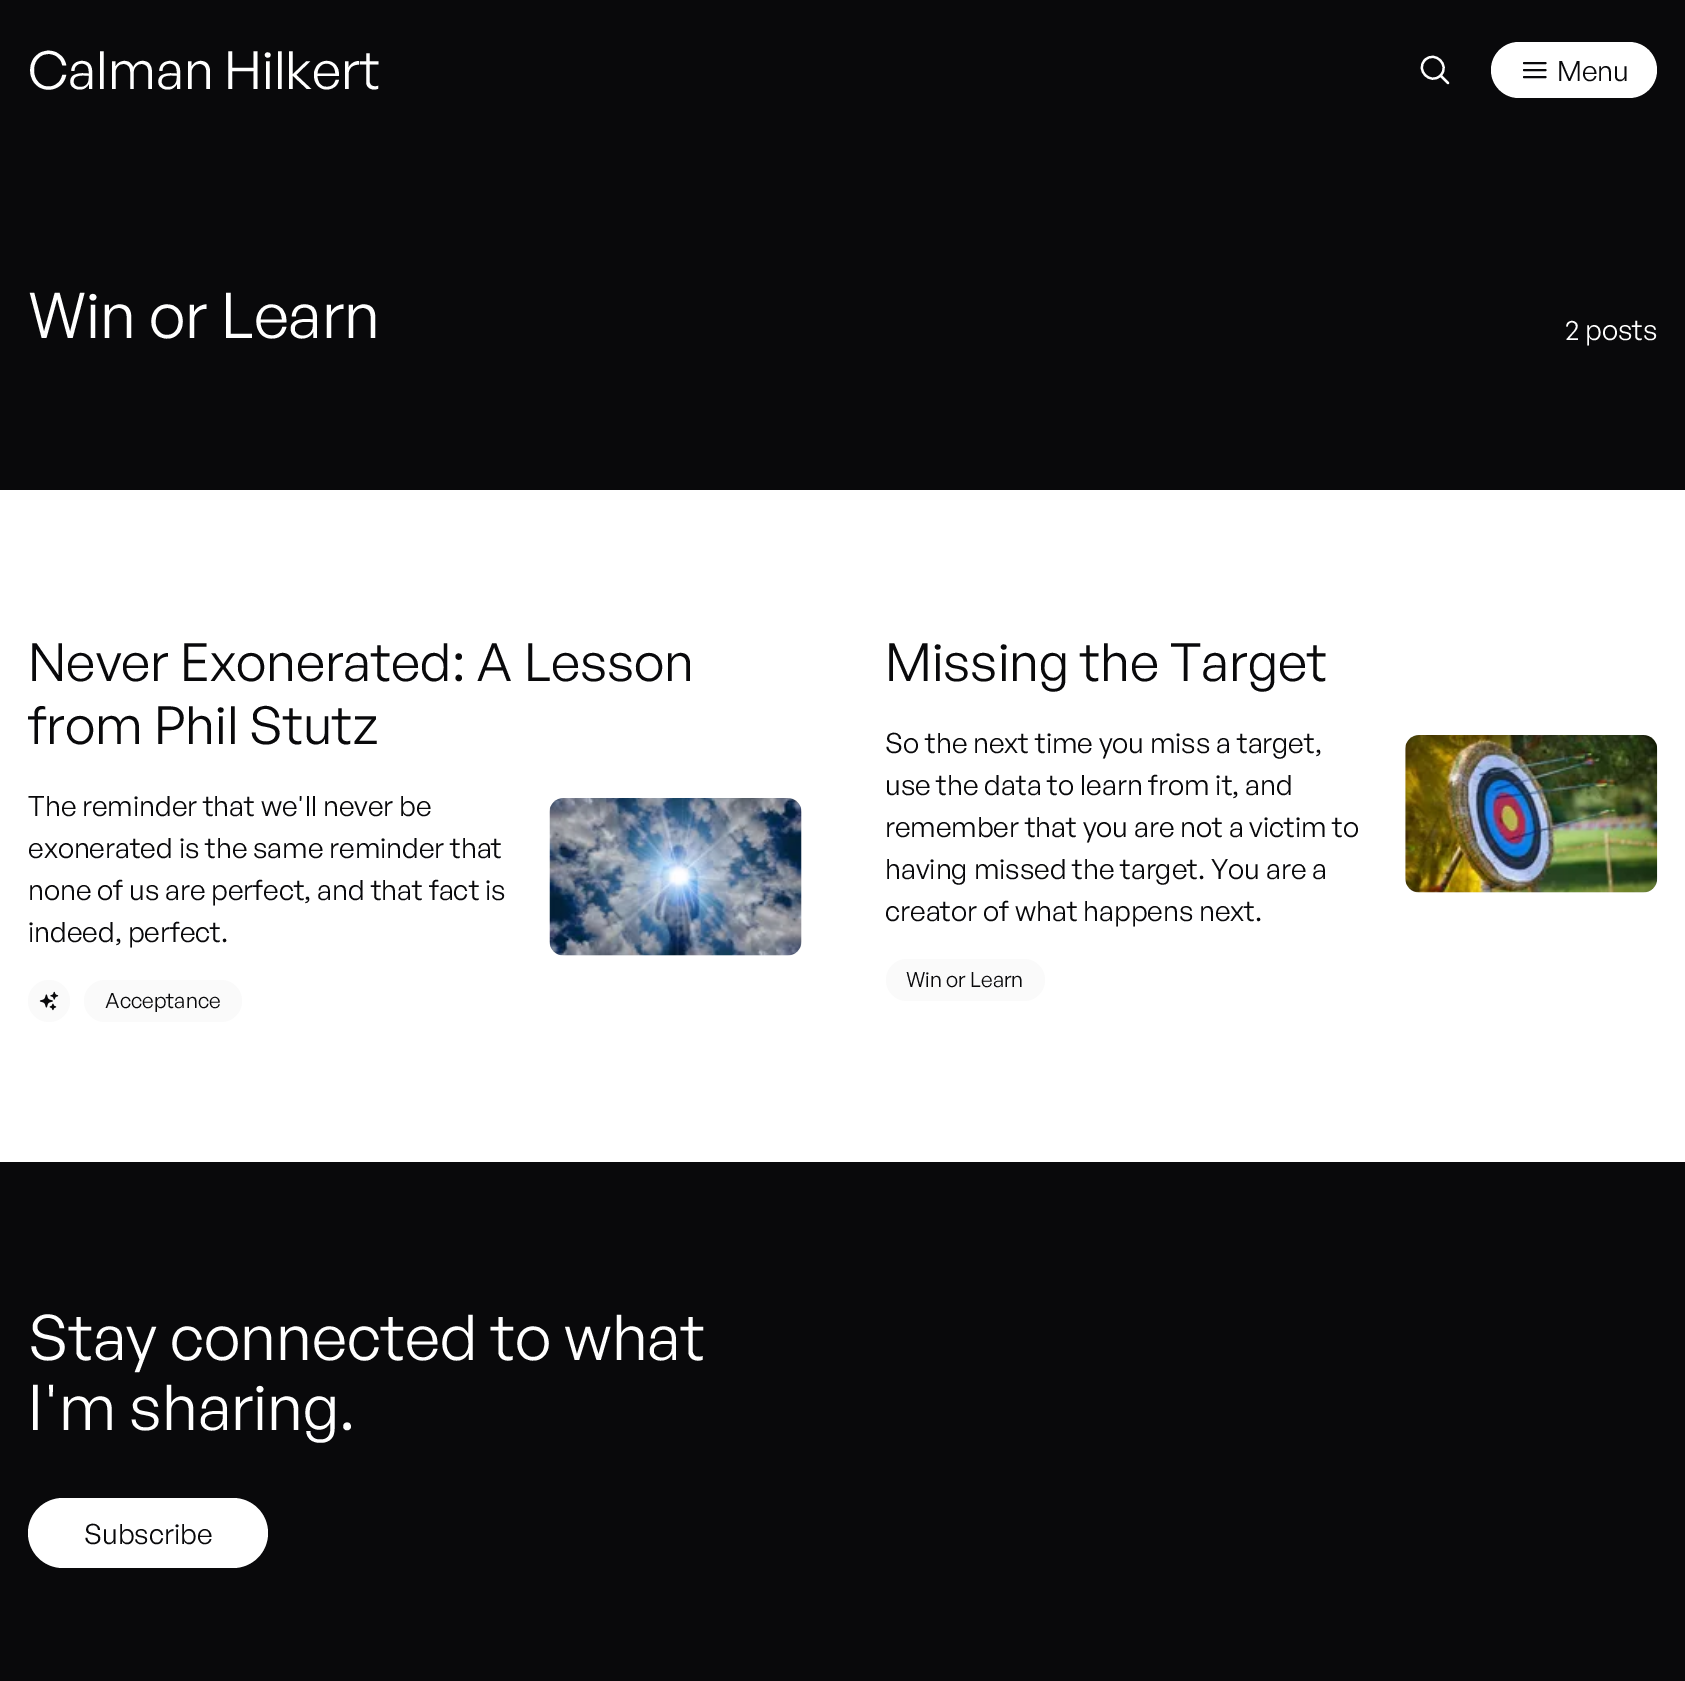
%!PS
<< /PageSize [1685 1681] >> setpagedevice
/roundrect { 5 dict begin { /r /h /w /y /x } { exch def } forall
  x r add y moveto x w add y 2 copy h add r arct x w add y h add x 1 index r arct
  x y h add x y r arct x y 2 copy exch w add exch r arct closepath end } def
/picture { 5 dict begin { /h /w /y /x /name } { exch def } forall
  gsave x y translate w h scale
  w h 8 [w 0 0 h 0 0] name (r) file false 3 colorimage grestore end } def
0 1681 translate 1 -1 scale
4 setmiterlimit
1 setgray
0 0 1685 1681 rectfill
0.035 0.035 0.043 setrgbcolor
0 0 1685 490 rectfill
/GeneralSans-Regular [52.5 0 0 -52.5 0 0] selectfont
1 setgray
28 89 moveto (Calman Hilkert) show
2.2 setlinewidth
1 setlinecap
1 setlinejoin
newpath 1448 83 moveto 1440.5 75.5 lineto 1440.5 75.5 moveto 1450.5 65.5 1435 50 1425 60 curveto 1415 70 1430.5 85.5 1440.5 75.5 curveto closepath stroke
1491 42 166 56 28 roundrect fill
0.035 0.035 0.043 setrgbcolor
2 setlinewidth
newpath 1524 63 moveto 1545.5 63 lineto 1524 70 moveto 1545.5 70 lineto 1524 77 moveto 1545.5 77 lineto stroke
/GeneralSans-Regular [28 0 0 -28 0 0] selectfont
1557 81 moveto (Menu) show
/GeneralSans-Regular [63 0 0 -63 0 0] selectfont
1 setgray
28 338 moveto (Win or Learn) show
/GeneralSans-Regular [28 0 0 -28 0 0] selectfont
1565 340 moveto (2 posts) show
/GeneralSans-Regular [52.5 0 0 -52.5 0 0] selectfont
0.035 0.035 0.043 setrgbcolor
28 681 moveto (Never Exonerated: A Lesson) show
28 744 moveto (from Phil Stutz) show
/GeneralSans-Regular [28 0 0 -28 0 0] selectfont
28 816 moveto (The reminder that we'll never be) show
28 858 moveto (exonerated is the same reminder that) show
28 900 moveto (none of us are perfect, and that fact is) show
28 942 moveto (indeed, perfect.) show
0.98 setgray
newpath 49 1001 21 0 360 arc closepath fill
(img1.rgb) 39 991 20 20 picture
84 980 158 42 21 roundrect fill
/GeneralSans-Regular [21 0 0 -21 0 0] selectfont
0.035 0.035 0.043 setrgbcolor
105 1008 moveto (Acceptance) show
0.98 setgray
550 798 252 158 14 roundrect fill
(img2.rgb) 549 798 253 158 picture
/GeneralSans-Regular [52.5 0 0 -52.5 0 0] selectfont
0.035 0.035 0.043 setrgbcolor
885 681 moveto (Missing the Target) show
/GeneralSans-Regular [28 0 0 -28 0 0] selectfont
885 753 moveto (So the next time you miss a target,) show
885 795 moveto (use the data to learn from it, and) show
885 837 moveto (remember that you are not a victim to) show
885 879 moveto (having missed the target. You are a) show
885 921 moveto (creator of what happens next.) show
0.98 setgray
886 959 159 42 21 roundrect fill
/GeneralSans-Regular [21 0 0 -21 0 0] selectfont
0.035 0.035 0.043 setrgbcolor
906 987 moveto (Win or Learn) show
0.98 setgray
1405 735 252 158 14 roundrect fill
(img3.rgb) 1405 735 253 158 picture
0.035 0.035 0.043 setrgbcolor
0 1162 1685 519 rectfill
/GeneralSans-Regular [63 0 0 -63 0 0] selectfont
1 setgray
28 1360 moveto (Stay connected to what) show
28 1430 moveto (I'm sharing.) show
28 1498 240 70 35 roundrect fill
/GeneralSans-Regular [28 0 0 -28 0 0] selectfont
0.035 0.035 0.043 setrgbcolor
84 1544 moveto (Subscribe) show
showpage
